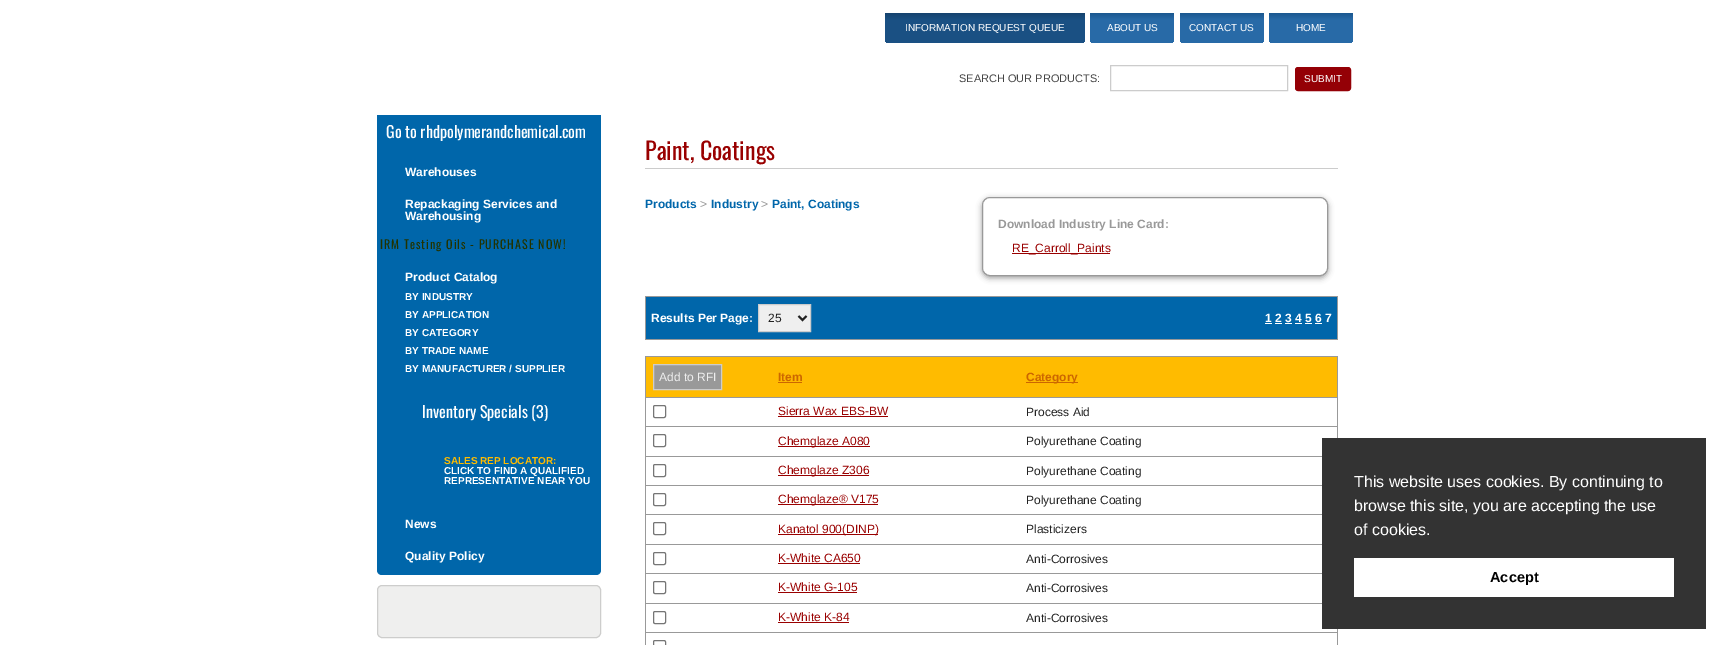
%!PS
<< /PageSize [1722 645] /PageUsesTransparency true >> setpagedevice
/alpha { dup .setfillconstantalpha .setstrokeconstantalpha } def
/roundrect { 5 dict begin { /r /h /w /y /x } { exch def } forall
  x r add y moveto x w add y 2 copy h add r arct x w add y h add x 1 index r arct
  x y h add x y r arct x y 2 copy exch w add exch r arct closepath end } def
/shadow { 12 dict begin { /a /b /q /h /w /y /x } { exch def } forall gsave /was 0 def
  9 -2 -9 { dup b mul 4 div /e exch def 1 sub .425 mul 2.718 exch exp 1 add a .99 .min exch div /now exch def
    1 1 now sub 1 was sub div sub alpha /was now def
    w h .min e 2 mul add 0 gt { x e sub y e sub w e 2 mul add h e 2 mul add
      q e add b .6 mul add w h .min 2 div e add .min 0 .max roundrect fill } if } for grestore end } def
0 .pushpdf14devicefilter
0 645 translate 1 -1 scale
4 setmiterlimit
1 setgray
0 0 1722 645 rectfill
gsave newpath 885 13 moveto 1085 13 lineto 1085 38 lineto 1085 41 1083 43 1080 43 curveto 890 43 lineto 887 43 885 41 885 38 curveto closepath clip newpath
<< /ShadingType 2 /ColorSpace /DeviceRGB /Coords [985 13 985 43] /Extend [true true] /Function << /FunctionType 3 /Domain [0 1] /Functions [<< /FunctionType 2 /Domain [0 1] /C0 [0.082 0.263 0.431] /C1 [0.102 0.314 0.514] /N 1 >> << /FunctionType 2 /Domain [0 1] /C0 [0.102 0.314 0.514] /C1 [0.102 0.314 0.514] /N 1 >>] /Bounds [0.23] /Encode [0 1 0 1] >> >> shfill grestore
/LiberationSans-Regular [10 0 0 -10 0 0] selectfont
905 31 moveto (INFORMATION REQUEST QUEUE) show
gsave newpath 1090 13 moveto 1174 13 lineto 1174 38 lineto 1174 41 1172 43 1169 43 curveto 1095 43 lineto 1092 43 1090 41 1090 38 curveto closepath clip newpath
<< /ShadingType 2 /ColorSpace /DeviceRGB /Coords [1132 13 1132 43] /Extend [true true] /Function << /FunctionType 3 /Domain [0 1] /Functions [<< /FunctionType 2 /Domain [0 1] /C0 [0.106 0.341 0.561] /C1 [0.157 0.416 0.655] /N 1 >> << /FunctionType 2 /Domain [0 1] /C0 [0.157 0.416 0.655] /C1 [0.157 0.416 0.655] /N 1 >>] /Bounds [0.23] /Encode [0 1 0 1] >> >> shfill grestore
1107 31 moveto (ABOUT US) show
gsave newpath 1180 13 moveto 1264 13 lineto 1264 38 lineto 1264 41 1262 43 1259 43 curveto 1185 43 lineto 1182 43 1180 41 1180 38 curveto closepath clip newpath
<< /ShadingType 2 /ColorSpace /DeviceRGB /Coords [1222 13 1222 43] /Extend [true true] /Function << /FunctionType 3 /Domain [0 1] /Functions [<< /FunctionType 2 /Domain [0 1] /C0 [0.106 0.341 0.561] /C1 [0.157 0.416 0.655] /N 1 >> << /FunctionType 2 /Domain [0 1] /C0 [0.157 0.416 0.655] /C1 [0.157 0.416 0.655] /N 1 >>] /Bounds [0.23] /Encode [0 1 0 1] >> >> shfill grestore
1189 31 moveto (CONTACT US) show
gsave newpath 1269 13 moveto 1353 13 lineto 1353 38 lineto 1353 41 1351 43 1348 43 curveto 1274 43 lineto 1271 43 1269 41 1269 38 curveto closepath clip newpath
<< /ShadingType 2 /ColorSpace /DeviceRGB /Coords [1311 13 1311 43] /Extend [true true] /Function << /FunctionType 3 /Domain [0 1] /Functions [<< /FunctionType 2 /Domain [0 1] /C0 [0.106 0.341 0.561] /C1 [0.157 0.416 0.655] /N 1 >> << /FunctionType 2 /Domain [0 1] /C0 [0.157 0.416 0.655] /C1 [0.157 0.416 0.655] /N 1 >>] /Bounds [0.23] /Encode [0 1 0 1] >> >> shfill grestore
1296 31 moveto (HOME) show
/LiberationSans-Regular [11 0 0 -11 0 0] selectfont
0.267 setgray
959 82 moveto (SEARCH OUR PRODUCTS:) show
0.8 setgray
1110.5 65.5 177 25 rectstroke
0.58 0 0.024 setrgbcolor
1295.5 67.5 55 23 2.5 roundrect gsave fill grestore
stroke
/LiberationSans-Regular [10 0 0 -10 0 0] selectfont
1 setgray
1304 82 moveto (SUBMIT) show
0 0.4 0.667 setrgbcolor
newpath 377 115 moveto 601 115 lineto 601 570 lineto 601 573 599 575 596 575 curveto 382 575 lineto 379 575 377 573 377 570 curveto closepath fill
/Oswald-Regular [16 0 0 -16 0 0] selectfont
1 setgray
386 138 moveto (Go to rhdpolymerandchemical.com) show
/LiberationSans-Bold [12 0 0 -12 0 0] selectfont
405 176 moveto (Warehouses) show
405 208 moveto (Repackaging Services and) show
405 220 moveto (Warehousing) show
/Oswald-Regular [12 0 0 -12 0 0] selectfont
0.133 0.2 0 setrgbcolor
380 249 moveto 1 0 (IRM Testing Oils - PURCHASE NOW!) ashow
/LiberationSans-Bold [12 0 0 -12 0 0] selectfont
1 setgray
405 281 moveto (Product Catalog) show
/LiberationSans-Bold [10 0 0 -10 0 0] selectfont
405 300 moveto (BY INDUSTRY) show
405 318 moveto (BY APPLICATION) show
405 336 moveto (BY CATEGORY) show
405 354 moveto (BY TRADE NAME) show
405 372 moveto (BY MANUFACTURER / SUPPLIER) show
/Oswald-Regular [16 0 0 -16 0 0] selectfont
422 418 moveto (Inventory Specials \(3\)) show
/LiberationSans-Bold [10 0 0 -10 0 0] selectfont
1 0.733 0 setrgbcolor
444 464 moveto (SALES REP LOCATOR:) show
1 setgray
444 474 moveto (CLICK TO FIND A QUALIFIED) show
444 484 moveto (REPRESENTATIVE NEAR YOU) show
/LiberationSans-Bold [12 0 0 -12 0 0] selectfont
405 528 moveto (News) show
405 560 moveto (Quality Policy) show
0.937 0.937 0.933 setrgbcolor
377.5 585.5 223 52 4.5 roundrect gsave fill grestore
0.804 0.804 0.8 setrgbcolor
stroke
0.8 setgray
645 168 693 1 rectfill
/Oswald-Regular [24 0 0 -24 0 0] selectfont
0.6 0 0 setrgbcolor
645 160 moveto (Paint, Coatings) show
/LiberationSans-Bold [12 0 0 -12 0 0] selectfont
0 0.4 0.667 setrgbcolor
645 208 moveto (Products) show
/LiberationSans-Regular [12 0 0 -12 0 0] selectfont
0.6 setgray
700 208 moveto (>) show
/LiberationSans-Bold [12 0 0 -12 0 0] selectfont
0 0.4 0.667 setrgbcolor
711 208 moveto (Industry) show
/LiberationSans-Regular [12 0 0 -12 0 0] selectfont
0.6 setgray
761 208 moveto (>) show
/LiberationSans-Bold [12 0 0 -12 0 0] selectfont
0 0.4 0.667 setrgbcolor
772 208 moveto (Paint, Coatings) show
0.6 setgray
982 199 346 79 8 3 1 shadow
1 setgray
982.5 197.5 345 78 7.5 roundrect gsave fill grestore
0.6 setgray
stroke
998 228 moveto (Download Industry Line Card:) show
0.6 0 0 setrgbcolor
1012 253 98 1 rectfill
/LiberationSans-Regular [12 0 0 -12 0 0] selectfont
1012 252 moveto (RE_Carroll_Paints) show
0.6 setgray
645 296 693 1 rectfill
1337 296 1 44 rectfill
645 296 1 44 rectfill
0 0.4 0.667 setrgbcolor
646 297 691 42 rectfill
/LiberationSans-Bold [12 0 0 -12 0 0] selectfont
1 setgray
651 322 moveto (Results Per Page:) show
0.937 setgray
newpath 758.5 304.5 moveto 810.5 304.5 lineto 810.5 331.5 lineto 758.5 331.5 lineto closepath gsave fill grestore
0.8 setgray
stroke
0.133 setgray
2 setlinewidth
newpath 798.5 316 moveto 802.5 320 lineto 806.5 316 lineto stroke
/LiberationSans-Regular [12 0 0 -12 0 0] selectfont
768 322 moveto (25) show
0.6 setgray
645 339 693 1 rectfill
/LiberationSans-Bold [12 0 0 -12 0 0] selectfont
1 setgray
1265 322 moveto (1 2 3 4 5 6 7) show
1265 323 7 1 rectfill
1275 323 7 1 rectfill
1285 323 7 1 rectfill
1295 323 7 1 rectfill
1305 323 7 1 rectfill
1315 323 7 1 rectfill
0.6 setgray
645 356 693 1 rectfill
1337 356 1 289 rectfill
645 356 1 289 rectfill
1 0.733 0 setrgbcolor
646 357 691 40 rectfill
0.6 setgray
newpath 653.5 364.5 moveto 721.5 364.5 lineto 721.5 389.5 lineto 653.5 389.5 lineto closepath gsave fill grestore
0.8 setgray
1 setlinewidth
stroke
/LiberationSans-Regular [12 0 0 -12 0 0] selectfont
0.933 setgray
659 381 moveto (Add to RFI) show
/LiberationSans-Bold [12 0 0 -12 0 0] selectfont
0.8 0.4 0 setrgbcolor
778 381 moveto (Item) show
778 382 24 1 rectfill
1026 382 52 1 rectfill
1026 381 moveto (Category) show
0.6 setgray
645 397 693 1 rectfill
0.463 setgray
653.5 405.5 12 12 1.5 roundrect stroke
/LiberationSans-Regular [12 0 0 -12 0 0] selectfont
0.6 0 0 setrgbcolor
778 415 moveto (Sierra Wax EBS-BW) show
778 416 110 1 rectfill
0.133 setgray
1026 416 moveto (Process Aid) show
0.6 setgray
645 426 693 1 rectfill
0.463 setgray
653.5 434.5 12 12 1.5 roundrect stroke
0.6 0 0 setrgbcolor
778 446 92 1 rectfill
778 445 moveto (Chemglaze A080) show
0.133 setgray
1026 445 moveto (Polyurethane Coating) show
0.6 setgray
645 456 677 1 rectfill
0.463 setgray
653.5 464.5 12 12 1.5 roundrect stroke
0.6 0 0 setrgbcolor
778 475 91 1 rectfill
778 474 moveto (Chemglaze Z306) show
0.133 setgray
1026 475 moveto (Polyurethane Coating) show
0.6 setgray
645 485 677 1 rectfill
0.463 setgray
653.5 493.5 12 12 1.5 roundrect stroke
0.6 0 0 setrgbcolor
778 504 100 1 rectfill
778 503 moveto (Chemglaze® V175) show
0.133 setgray
1026 504 moveto (Polyurethane Coating) show
0.6 setgray
645 514 677 1 rectfill
0.463 setgray
653.5 522.5 12 12 1.5 roundrect stroke
0.6 0 0 setrgbcolor
778 534 100 1 rectfill
778 533 moveto (Kanatol 900\(DINP\)) show
0.133 setgray
1026 533 moveto (Plasticizers) show
0.6 setgray
645 544 677 1 rectfill
0.463 setgray
653.5 552.5 12 12 1.5 roundrect stroke
0.6 0 0 setrgbcolor
778 562 moveto (K-White CA650) show
778 563 82 1 rectfill
0.133 setgray
1026 563 moveto (Anti-Corrosives) show
0.6 setgray
645 573 677 1 rectfill
0.463 setgray
653.5 581.5 12 12 1.5 roundrect stroke
0.6 0 0 setrgbcolor
778 591 moveto (K-White G-105) show
778 592 79 1 rectfill
0.133 setgray
1026 592 moveto (Anti-Corrosives) show
0.6 setgray
645 603 677 1 rectfill
0.463 setgray
653.5 611.5 12 12 1.5 roundrect stroke
0.6 0 0 setrgbcolor
778 621 moveto (K-White K-84) show
778 622 71 1 rectfill
0.133 setgray
1026 622 moveto (Anti-Corrosives) show
0.6 setgray
645 632 693 1 rectfill
0.463 setgray
653.5 640.5 12 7 1.5 roundrect stroke
0.2 setgray
1322 438 384 191 rectfill
/LiberationSans-Regular [16 0 0 -16 0 0] selectfont
1 setgray
1354 487 moveto (This website uses cookies. By continuing to) show
1354 511 moveto (browse this site, you are accepting the use) show
1354 535 moveto (of cookies.) show
1354 558 320 39 rectfill
/LiberationSans-Bold [14.5 0 0 -14.5 0 0] selectfont
0 setgray
1490 582 moveto (Accept) show
.poppdf14devicefilter showpage
